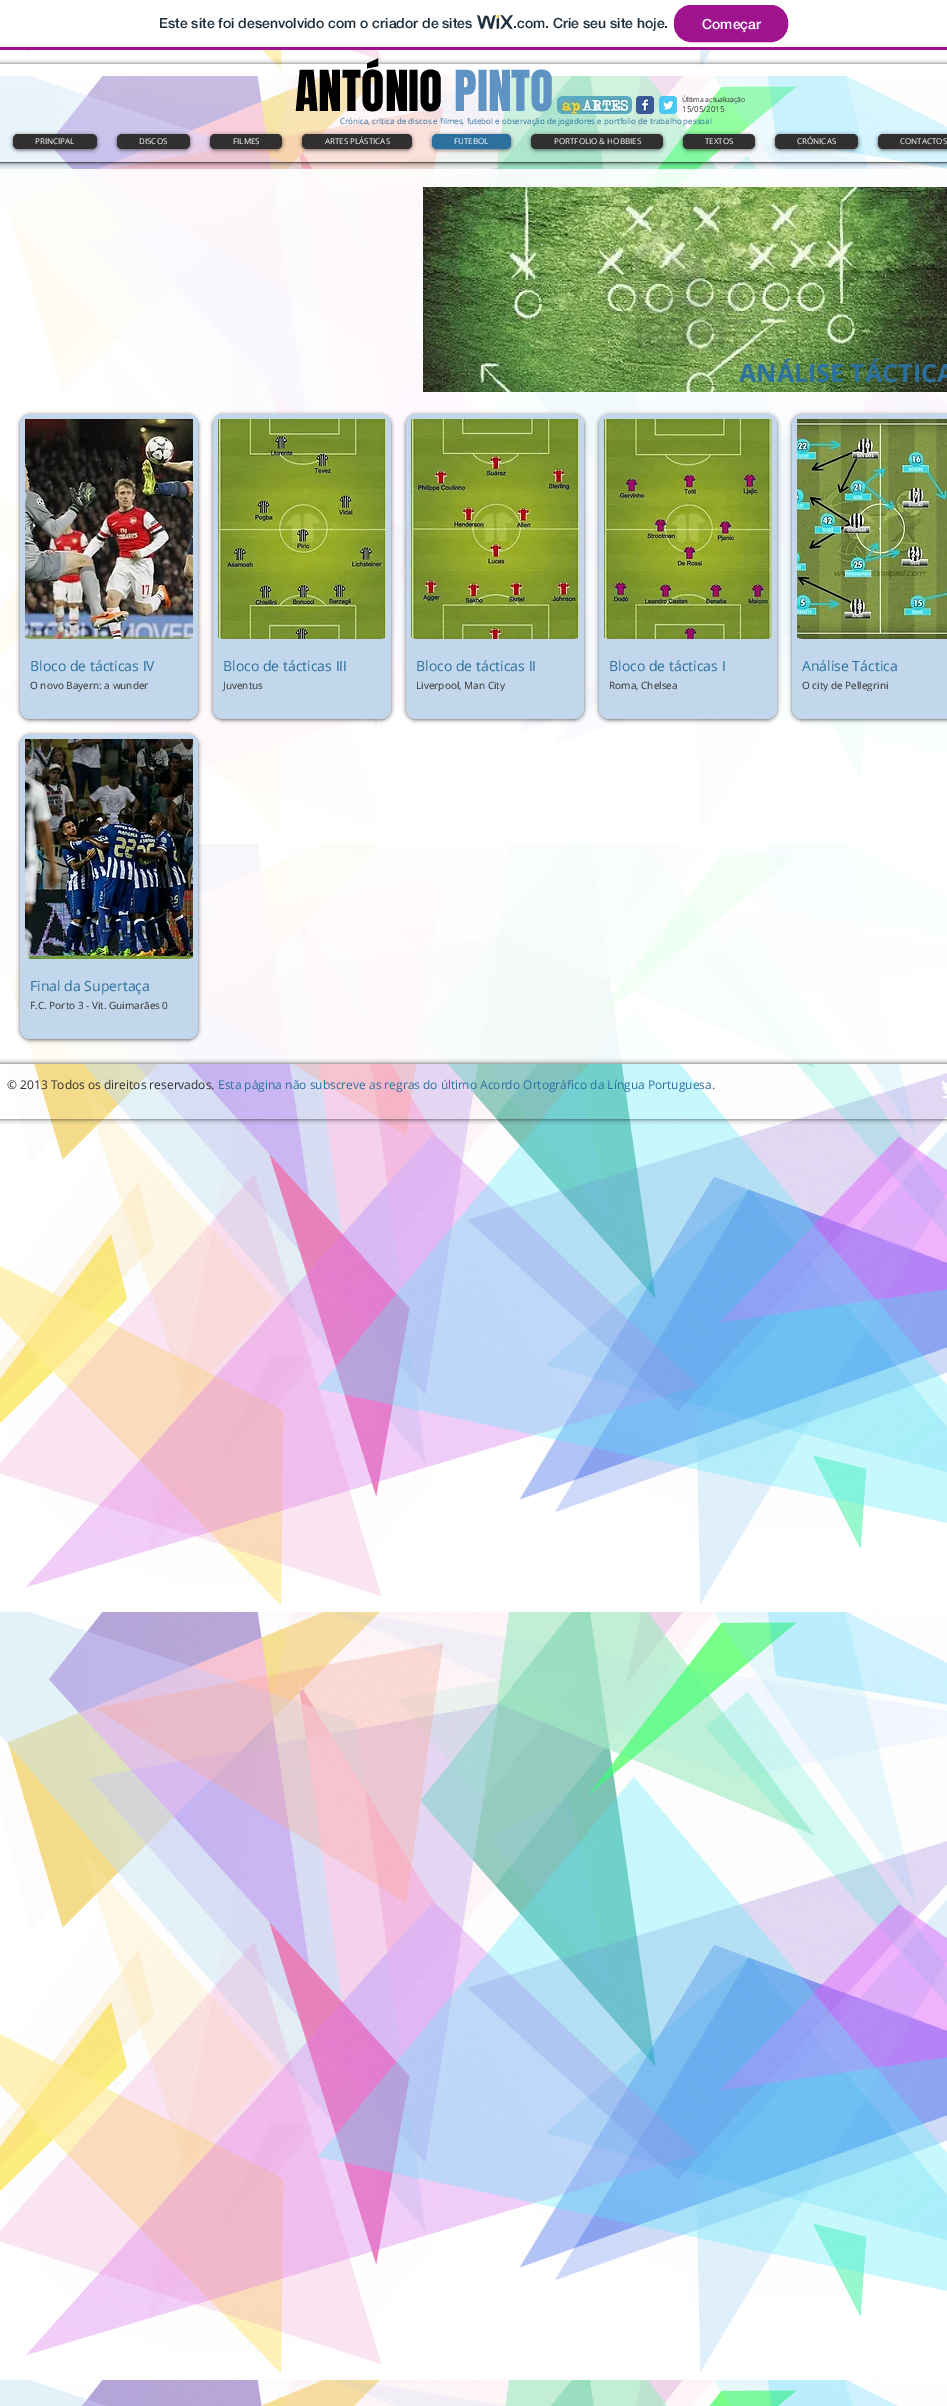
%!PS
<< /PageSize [947 2406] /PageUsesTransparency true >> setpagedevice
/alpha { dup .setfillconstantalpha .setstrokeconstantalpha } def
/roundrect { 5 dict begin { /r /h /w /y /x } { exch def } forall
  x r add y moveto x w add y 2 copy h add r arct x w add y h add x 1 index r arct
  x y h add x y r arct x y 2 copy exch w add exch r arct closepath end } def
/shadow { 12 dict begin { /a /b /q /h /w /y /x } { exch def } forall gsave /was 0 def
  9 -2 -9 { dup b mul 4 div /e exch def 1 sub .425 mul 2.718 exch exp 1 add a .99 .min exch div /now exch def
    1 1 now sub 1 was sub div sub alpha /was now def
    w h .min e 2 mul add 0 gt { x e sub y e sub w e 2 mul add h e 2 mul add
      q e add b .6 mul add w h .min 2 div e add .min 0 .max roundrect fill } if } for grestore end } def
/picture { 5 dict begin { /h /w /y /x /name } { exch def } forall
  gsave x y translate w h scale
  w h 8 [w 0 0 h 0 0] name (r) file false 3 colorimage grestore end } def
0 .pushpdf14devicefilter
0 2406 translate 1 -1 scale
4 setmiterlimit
1 setgray
0 0 947 2406 rectfill
0.627 0.075 0.557 setrgbcolor
0 47 947 3 rectfill
/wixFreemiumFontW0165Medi-Medium [14 0 0 -14 0 0] selectfont
0.125 0.188 0.235 setrgbcolor
159 28 moveto (Este site foi desenvolvido com o criador de sites) show
(img1.rgb) 477 15 36 15 picture
513 28 moveto (.com. Crie seu site hoje.) show
0.627 0.075 0.557 setrgbcolor
674.5 5.5 113 36 16.5 roundrect gsave fill grestore
stroke
1 setgray
702 29 moveto (Começar) show
(img2.rgb) 0 50 947 2356 picture
0.9 alpha
0 169 947 895 rectfill
gsave
newpath 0 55 moveto 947 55 lineto 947 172 lineto 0 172 lineto closepath 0 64 moveto 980 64 lineto 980 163 lineto 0 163 lineto closepath eoclip newpath
1 alpha
0 setgray
0 64 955 99 0 2.5 0.6 shadow
grestore
1 alpha
(img3.rgb) 0 64 947 99 picture
0.6 alpha
0 setgray
0 162 947 1 rectfill
1 setgray
276 64 427 1 rectfill
/Anton-Regular [48 0 0 -48 0 0] selectfont
1 alpha
0 setgray
295 111 moveto (ANTÓNIO) show
0.369 0.576 0.769 setrgbcolor
454 111 moveto (PINTO) show
(img4.rgb) 557 96 75 18 picture
(img5.rgb) 636 96 18 18 picture
(img6.rgb) 659 96 18 18 picture
/OpenSans-Regular [7 0 0 -7 0 0] selectfont
0.192 0.184 0.184 setrgbcolor
682 102 moveto (Última actualização) show
/OpenSans-Regular [8 0 0 -8 0 0] selectfont
682 112 moveto (15/05/2015) show
0.173 0.439 0.627 setrgbcolor
340 124 moveto (Crónica, crítica de discos e filmes, futebol e observação de jogadores e portfolio de trabalho pessoal) show
0 setgray
13 135 84 15 5 2 0.6 shadow
0.192 0.184 0.184 setrgbcolor
13 134 84 15 5 roundrect fill
1 setgray
35 144 moveto (PRINCIPAL) show
0 setgray
117 135 73 15 5 2 0.6 shadow
0.192 0.184 0.184 setrgbcolor
117 134 73 15 5 roundrect fill
1 setgray
139 144 moveto (DISCOS) show
0 setgray
210 135 72 15 5 2 0.6 shadow
0.192 0.184 0.184 setrgbcolor
210 134 72 15 5 roundrect fill
1 setgray
233 144 moveto (FILMES) show
0 setgray
302 135 110 15 5 2 0.6 shadow
0.192 0.184 0.184 setrgbcolor
302 134 110 15 5 roundrect fill
1 setgray
325 144 moveto (ARTES PLÁSTICAS) show
0 setgray
432 135 79 15 5 2 0.6 shadow
0.173 0.439 0.627 setrgbcolor
432 134 79 15 5 roundrect fill
1 setgray
454 144 moveto (FUTEBOL) show
0 setgray
531 135 132 15 5 2 0.6 shadow
0.192 0.184 0.184 setrgbcolor
531 134 132 15 5 roundrect fill
1 setgray
554 144 moveto (PORTFOLIO & HOBBIES) show
0 setgray
683 135 72 15 5 2 0.6 shadow
0.192 0.184 0.184 setrgbcolor
683 134 72 15 5 roundrect fill
1 setgray
705 144 moveto (TEXTOS) show
0 setgray
775 135 83 15 5 2 0.6 shadow
0.192 0.184 0.184 setrgbcolor
775 134 83 15 5 roundrect fill
1 setgray
797 144 moveto (CRÓNICAS) show
0 setgray
878 135 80 15 5 2 0.6 shadow
0.192 0.184 0.184 setrgbcolor
878 134 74 15 5 roundrect fill
1 setgray
900 144 moveto (CONTACTOS) show
(img7.rgb) 423 187 524 205 picture
/OpenSans-Bold [25 0 0 -25 0 0] selectfont
0.173 0.439 0.627 setrgbcolor
739 382 moveto (ANÁLISE TÁCTICA) show
0 setgray
20 415 178 305 10 2 0.6 shadow
0.761 0.843 0.922 setrgbcolor
20 414 178 305 10 roundrect fill
(img8.rgb) 25 419 168 220 picture
/OpenSans-Regular [14 0 0 -14 0 0] selectfont
0.173 0.439 0.627 setrgbcolor
30 671 moveto (Bloco de tácticas IV) show
/OpenSans-Regular [10 0 0 -10 0 0] selectfont
0.192 0.184 0.184 setrgbcolor
30 689 moveto (O novo Bayern: a wunder) show
0 setgray
213 415 178 305 10 2 0.6 shadow
0.761 0.843 0.922 setrgbcolor
213 414 178 305 10 roundrect fill
(img9.rgb) 218 419 168 220 picture
/OpenSans-Regular [14 0 0 -14 0 0] selectfont
0.173 0.439 0.627 setrgbcolor
223 671 moveto (Bloco de tácticas III) show
/OpenSans-Regular [10 0 0 -10 0 0] selectfont
0.192 0.184 0.184 setrgbcolor
223 689 moveto (Juventus) show
0 setgray
406 415 178 305 10 2 0.6 shadow
0.761 0.843 0.922 setrgbcolor
406 414 178 305 10 roundrect fill
(img10.rgb) 411 419 168 220 picture
/OpenSans-Regular [14 0 0 -14 0 0] selectfont
0.173 0.439 0.627 setrgbcolor
416 671 moveto (Bloco de tácticas II) show
gsave
416 679 158 12 rectclip
/OpenSans-Regular [10 0 0 -10 0 0] selectfont
0.192 0.184 0.184 setrgbcolor
416 689 moveto (Liverpool, Man City) show
grestore
0 setgray
599 415 178 305 10 2 0.6 shadow
0.761 0.843 0.922 setrgbcolor
599 414 178 305 10 roundrect fill
(img11.rgb) 604 419 168 220 picture
0.173 0.439 0.627 setrgbcolor
609 671 moveto (Bloco de tácticas I) show
/OpenSans-Regular [10 0 0 -10 0 0] selectfont
0.192 0.184 0.184 setrgbcolor
609 689 moveto (Roma, Chelsea) show
0 setgray
792 415 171 305 10 2 0.6 shadow
0.761 0.843 0.922 setrgbcolor
792 414 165 305 10 roundrect fill
(img12.rgb) 797 419 150 220 picture
/OpenSans-Regular [14 0 0 -14 0 0] selectfont
0.173 0.439 0.627 setrgbcolor
802 671 moveto (Análise Táctica) show
gsave
802 679 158 12 rectclip
/OpenSans-Regular [10 0 0 -10 0 0] selectfont
0.192 0.184 0.184 setrgbcolor
802 689 moveto (O city de Pellegrini) show
grestore
0 setgray
20 735 178 305 10 2 0.6 shadow
0.761 0.843 0.922 setrgbcolor
20 734 178 305 10 roundrect fill
(img13.rgb) 25 739 168 220 picture
0.173 0.439 0.627 setrgbcolor
30 991 moveto (Final da Supertaça) show
/OpenSans-Regular [10 0 0 -10 0 0] selectfont
0.192 0.184 0.184 setrgbcolor
30 1009 moveto (F.C. Porto 3 - Vit. Guimarães 0) show
gsave
newpath 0 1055 moveto 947 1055 lineto 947 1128 lineto 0 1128 lineto closepath 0 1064 moveto 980 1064 lineto 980 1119 lineto 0 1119 lineto closepath eoclip newpath
0 setgray
0 1064 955 55 0 2.5 0.7 shadow
grestore
/OpenSans-Regular [12 0 0 -12 0 0] selectfont
7 1089 moveto (© 2013 Todos os direitos reservados.) show
0.173 0.439 0.627 setrgbcolor
218 1089 moveto (Esta página não subscreve as regras do último Acordo Ortográfico da Língua Portuguesa.) show
(img14.rgb) 941 1080 6 19 picture
.poppdf14devicefilter showpage
